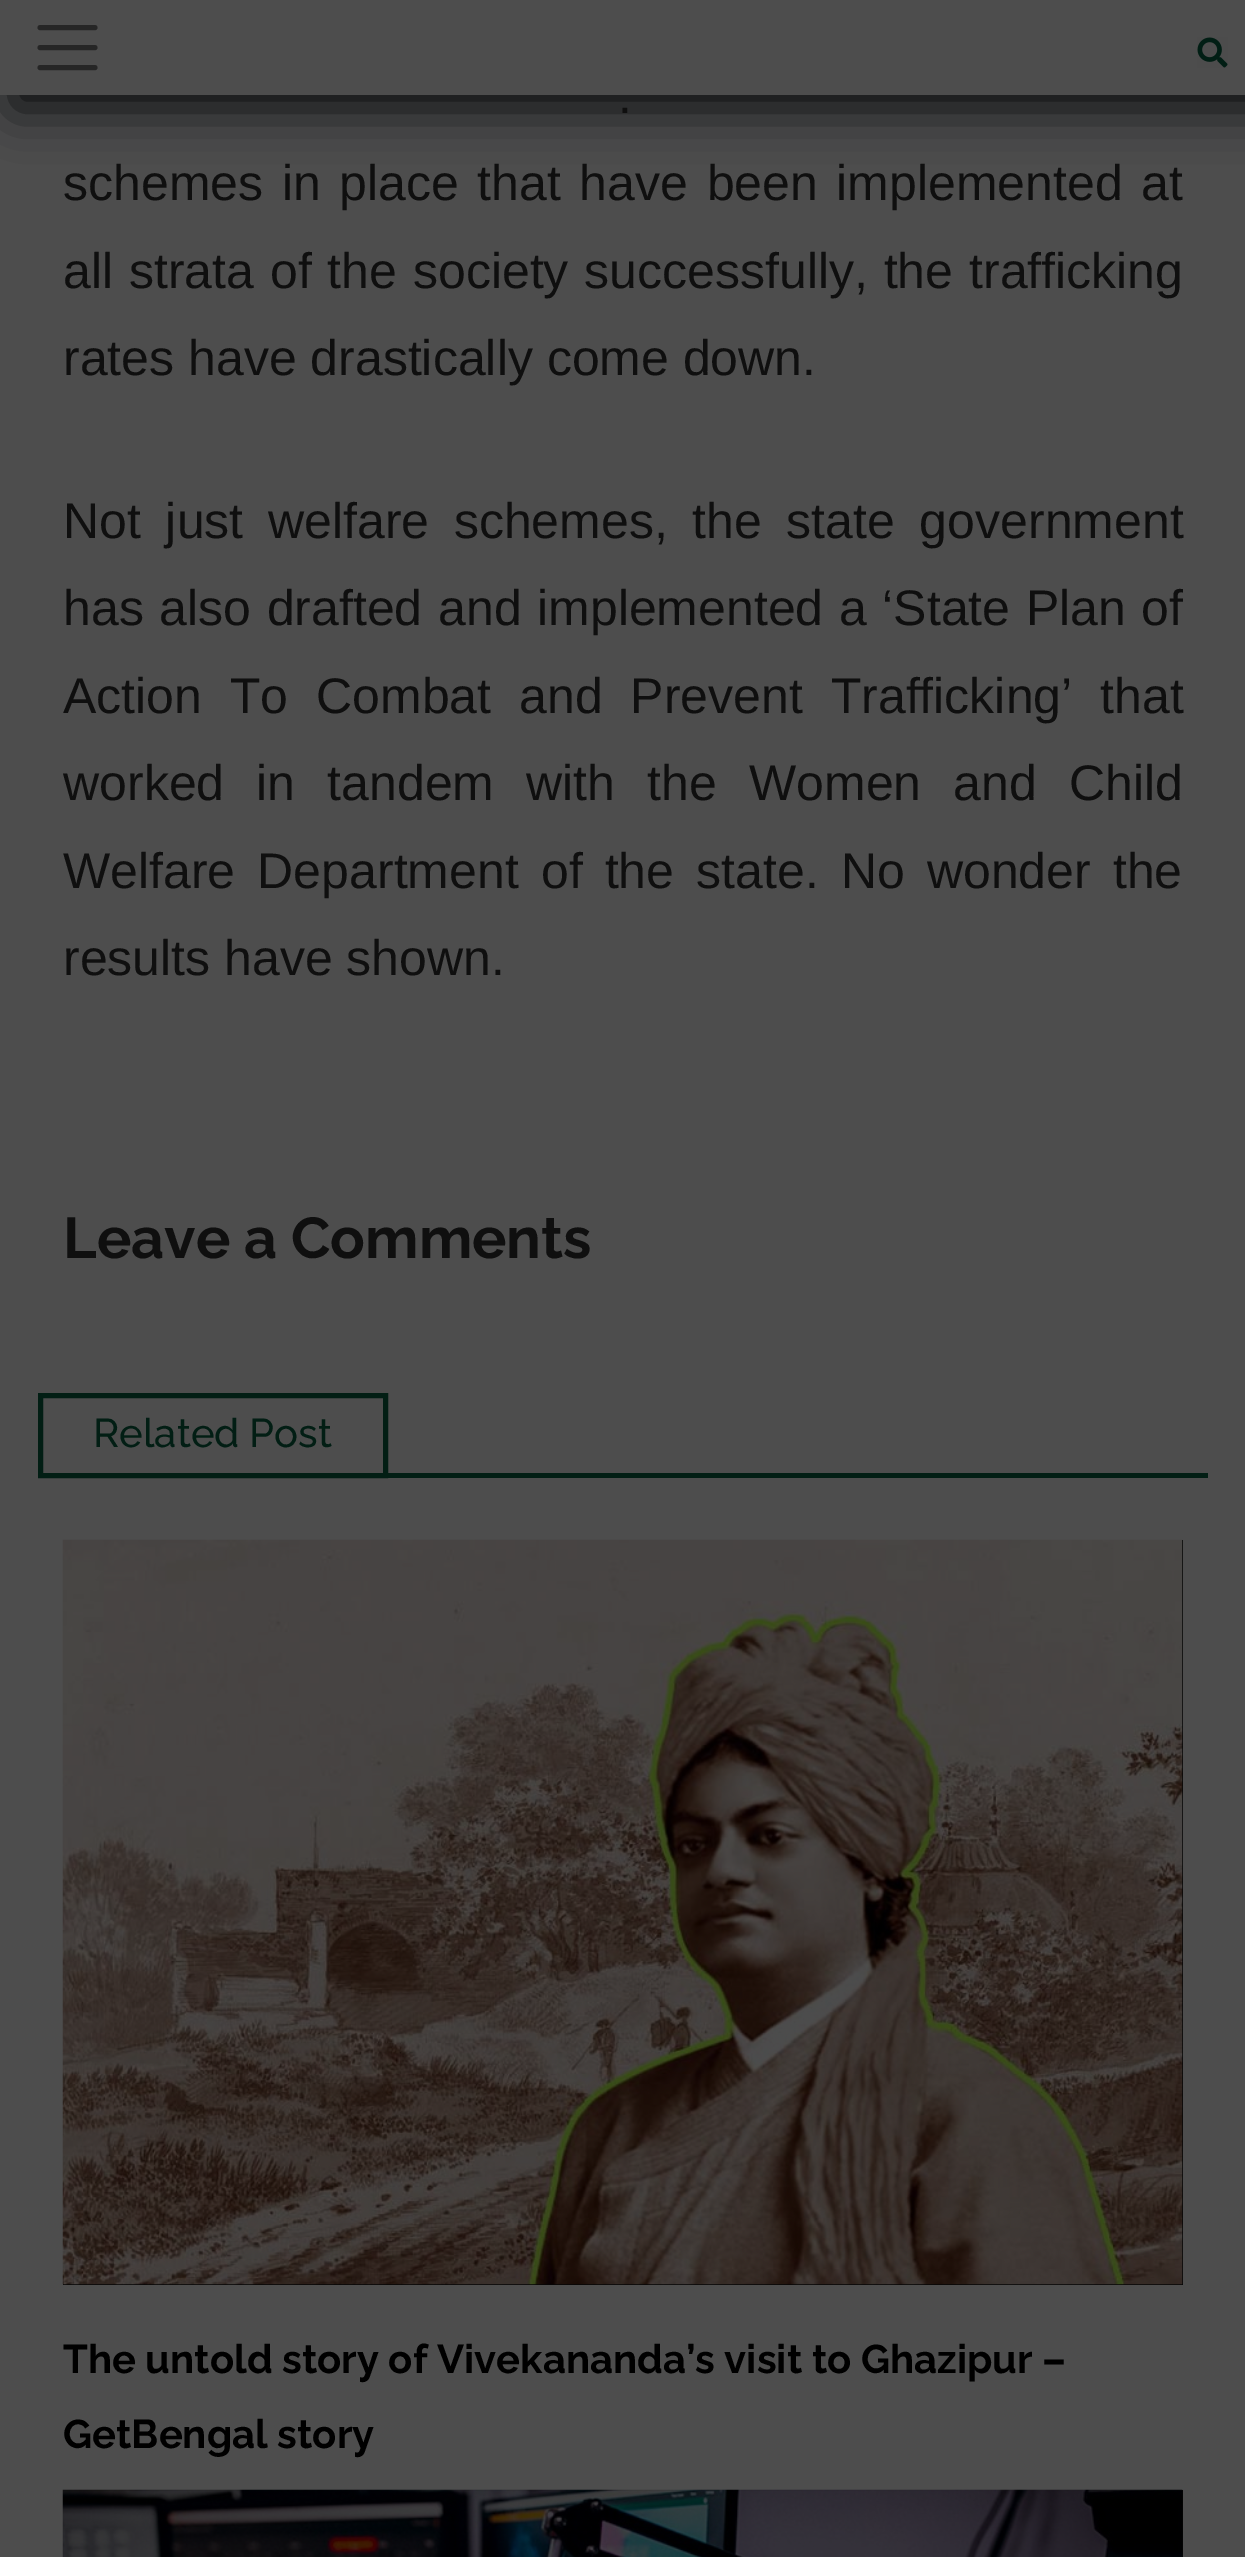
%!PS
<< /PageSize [1245 2557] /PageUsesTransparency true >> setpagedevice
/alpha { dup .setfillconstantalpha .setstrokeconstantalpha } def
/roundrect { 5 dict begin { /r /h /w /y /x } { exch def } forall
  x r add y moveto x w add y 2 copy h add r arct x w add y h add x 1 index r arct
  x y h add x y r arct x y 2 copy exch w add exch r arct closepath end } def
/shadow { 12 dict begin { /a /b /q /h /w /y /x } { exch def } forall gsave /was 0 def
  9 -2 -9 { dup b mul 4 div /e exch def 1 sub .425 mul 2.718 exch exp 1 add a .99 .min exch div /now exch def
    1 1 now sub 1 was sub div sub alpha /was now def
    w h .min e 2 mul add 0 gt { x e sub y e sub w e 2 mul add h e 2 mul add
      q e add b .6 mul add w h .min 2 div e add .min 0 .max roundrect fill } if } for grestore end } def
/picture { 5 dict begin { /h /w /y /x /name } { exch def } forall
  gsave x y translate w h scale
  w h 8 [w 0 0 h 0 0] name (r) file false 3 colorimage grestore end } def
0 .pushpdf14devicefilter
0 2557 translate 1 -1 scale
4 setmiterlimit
0.302 setgray
0 0 1245 2557 rectfill
0.039 0.043 0.047 setrgbcolor
13 13 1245 95 0 25 1 shadow
0.302 setgray
0 0 1245 95 rectfill
0.149 setgray
5 setlinewidth
1 setlinecap
newpath 40 27.5 moveto 95 27.5 lineto 40 47.5 moveto 95 47.5 lineto 40 67.5 moveto 95 67.5 lineto stroke
(img1.rgb) 1197 37 31 31 picture
/LiberationSans-Regular [50 0 0 -50 0 0] selectfont
0.059 setgray
618 113 moveto 10 0 32 (.) widthshow
63 200 moveto 4.75 0 32 (schemes in place that have been implemented at) widthshow
63 288 moveto 2 0 32 (all strata of the society successfully, the trafficking) widthshow
63 375 moveto (rates have drastically come down.) show
63 538 moveto 10.75 0 32 (Not just welfare schemes, the state government) widthshow
63 625 moveto 1.75 0 32 (has also drafted and implemented a ‘State Plan of) widthshow
63 713 moveto 14 0 32 (Action To Combat and Prevent Trafficking’ that) widthshow
63 800 moveto 18.25 0 32 (worked in tandem with the Women and Child) widthshow
63 888 moveto 8.25 0 32 (Welfare Department of the state. No wonder the) widthshow
63 975 moveto (results have shown.) show
/Raleway-Bold [57.5 0 0 -57.5 0 0] selectfont
63 1258 moveto (Leave a Comments) show
0.008 0.118 0.078 setrgbcolor
0 setlinecap
40.5 1395.5 345 80 rectstroke
/Raleway-Medium [40 0 0 -40 0 0] selectfont
93 1447 moveto (Related Post) show
388 1473 820 5 rectfill
0.02 setgray
63 1540 1120 745 rectfill
(img2.rgb) 62 1539 1121 746 picture
/Raleway-Bold [40 0 0 -40 0 0] selectfont
0 setgray
63 2373 moveto (The untold story of Vivekananda’s visit to Ghazipur –) show
63 2448 moveto (GetBengal story) show
0.02 setgray
1182 2490 1 67 rectfill
(img3.rgb) 62 2489 1121 68 picture
.poppdf14devicefilter showpage
